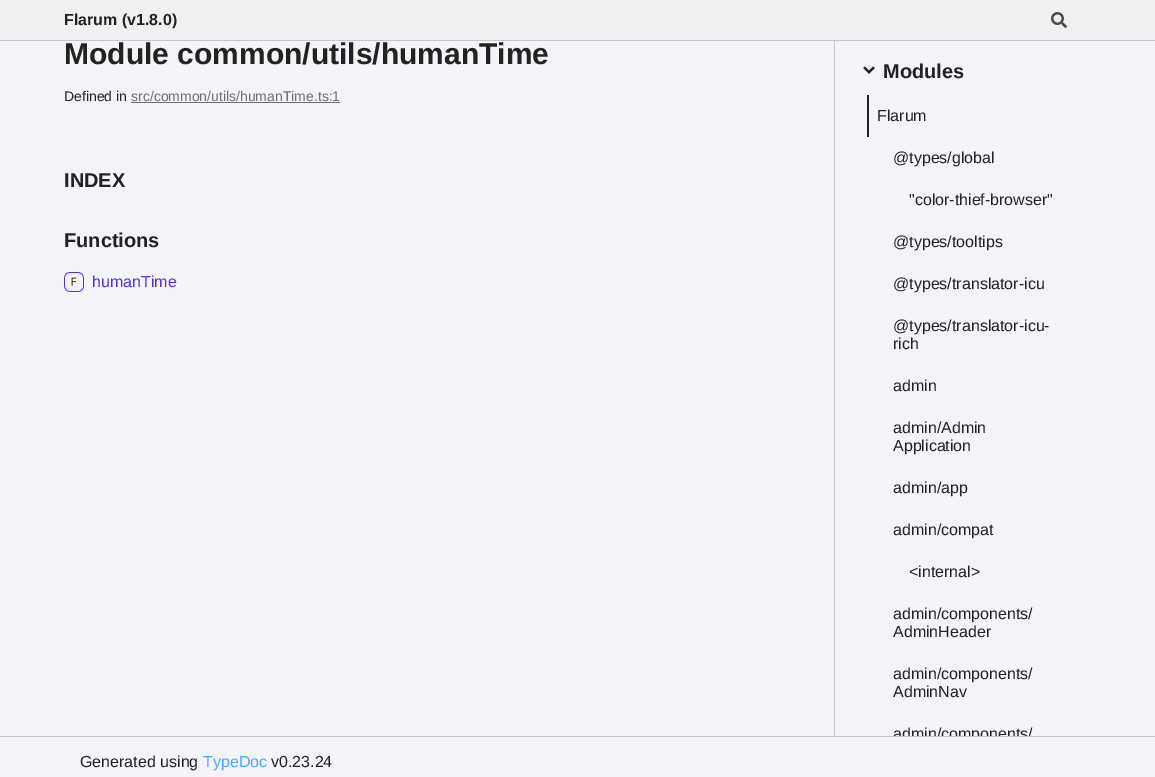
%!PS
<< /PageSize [1155 777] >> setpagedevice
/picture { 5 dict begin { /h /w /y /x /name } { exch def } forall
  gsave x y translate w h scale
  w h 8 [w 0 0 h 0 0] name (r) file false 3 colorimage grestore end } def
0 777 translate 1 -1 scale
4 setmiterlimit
0.949 0.957 0.973 setrgbcolor
0 0 1155 777 rectfill
0.937 0.941 0.945 setrgbcolor
0 0 1155 40 rectfill
0.773 0.78 0.788 setrgbcolor
0 40 1155 1 rectfill
/LiberationSans-Bold [16 0 0 -16 0 0] selectfont
0.133 setgray
64 25 moveto (Flarum \(v1.8.0\)) show
(img1.rgb) 1051 12 16 16 picture
/LiberationSans-Bold [30 0 0 -30 0 0] selectfont
64 64 moveto (Module common/utils/humanTime) show
/LiberationSans-Regular [14 0 0 -14 0 0] selectfont
64 101 moveto (Defined in) show
0.439 setgray
131 101 moveto (src/common/utils/humanTime.ts:1) show
131 102 209 1 rectfill
/LiberationSans-Bold [20 0 0 -20 0 0] selectfont
0.133 setgray
64 187 moveto (INDEX) show
64 247 moveto (Functions) show
(img2.rgb) 64 272 20 20 picture
/LiberationSans-Regular [16 0 0 -16 0 0] selectfont
0.341 0.169 0.906 setrgbcolor
92 287 moveto (humanTime) show
0.773 0.78 0.788 setrgbcolor
834 41 1 695 rectfill
(img3.rgb) 863 66 12 8 picture
/LiberationSans-Bold [20 0 0 -20 0 0] selectfont
0.133 setgray
883 78 moveto (Modules) show
867 95 2 42 rectfill
/LiberationSans-Regular [16 0 0 -16 0 0] selectfont
877 121 moveto (Flarum) show
893 163 moveto (@types/global) show
909 205 moveto ("color-thief-browser") show
893 247 moveto (@types/tooltips) show
893 289 moveto (@types/translator-icu) show
893 331 moveto (@types/translator-icu-) show
893 349 moveto (rich) show
893 391 moveto (admin) show
893 433 moveto (admin/Admin) show
893 451 moveto (Application) show
893 493 moveto (admin/app) show
893 535 moveto (admin/compat) show
909 577 moveto (<internal>) show
893 619 moveto (admin/components/) show
893 637 moveto (AdminHeader) show
893 679 moveto (admin/components/) show
893 697 moveto (AdminNav) show
gsave
835 0 256 736 rectclip
893 739 moveto (admin/components/) show
grestore
0.773 0.78 0.788 setrgbcolor
0 736 1155 1 rectfill
0.133 setgray
80 767 moveto (Generated using) show
0.302 0.651 1 setrgbcolor
203 767 moveto (TypeDoc) show
0.133 setgray
271 767 moveto (v0.23.24) show
showpage
